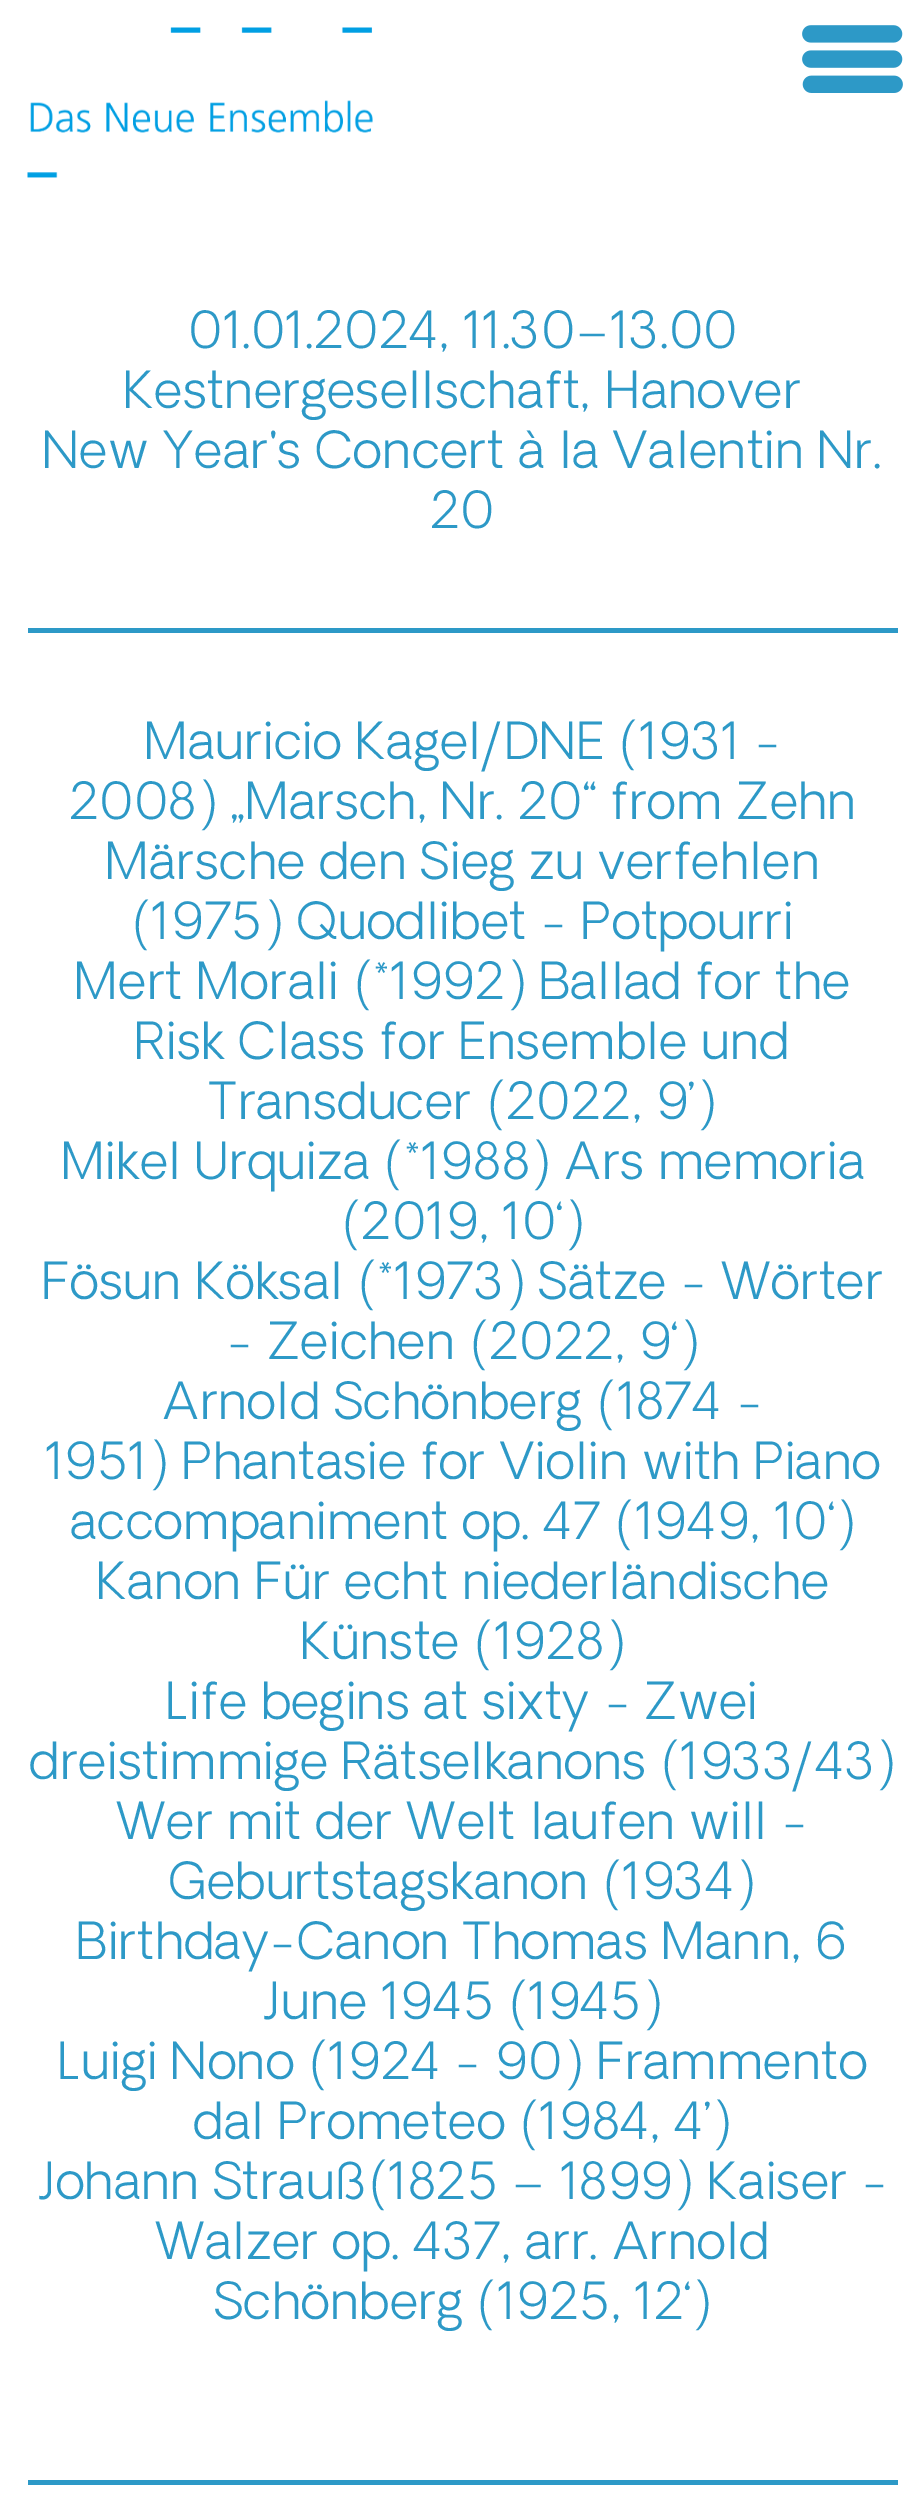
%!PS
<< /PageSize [923 2516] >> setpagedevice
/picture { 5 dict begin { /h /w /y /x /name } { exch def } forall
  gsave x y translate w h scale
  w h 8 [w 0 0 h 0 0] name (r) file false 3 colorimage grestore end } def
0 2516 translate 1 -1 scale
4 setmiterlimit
1 setgray
0 0 923 2516 rectfill
(img1.rgb) 27 27 346 151 picture
(img2.rgb) 802 25 101 68 picture
/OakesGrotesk-Light [50 0 0 -50 0 0] selectfont
0.176 0.6 0.78 setrgbcolor
188 348 moveto 0.5 0 (01.01.2024, 11.30–13.00) ashow
123 408 moveto 0.5 0 (Kestnergesellschaft, Hanover) ashow
43 468 moveto 0.5 0 (New Year's Concert à la Valentin Nr.) ashow
430 528 moveto 0.5 0 (20) ashow
28 628 870 5 rectfill
144 759 moveto 0.5 0 (Mauricio Kagel/DNE \(1931 -) ashow
69 819 moveto 0.5 0 (2008\) „Marsch, Nr. 20“ from Zehn) ashow
105 879 moveto 0.5 0 (Märsche den Sieg zu verfehlen) ashow
131 939 moveto 0.5 0 (\(1975\) Quodlibet - Potpourri) ashow
74 999 moveto 0.5 0 (Mert Morali \(*1992\) Ballad for the) ashow
135 1059 moveto 0.5 0 (Risk Class for Ensemble und) ashow
209 1119 moveto 0.5 0 (Transducer \(2022, 9’\)) ashow
61 1179 moveto 0.5 0 (Mikel Urquiza \(*1988\) Ars memoria) ashow
341 1239 moveto 0.5 0 (\(2019, 10‘\)) ashow
42 1299 moveto 0.5 0 (Fösun Köksal \(*1973\) Sätze - Wörter) ashow
226 1359 moveto 0.5 0 (- Zeichen \(2022, 9‘\)) ashow
162 1419 moveto 0.5 0 (Arnold Schönberg \(1874 -) ashow
45 1479 moveto 0.5 0 (1951\) Phantasie for Violin with Piano) ashow
70 1539 moveto 0.5 0 (accompaniment op. 47 \(1949, 10‘\)) ashow
96 1599 moveto 0.5 0 (Kanon Für echt niederländische) ashow
300 1659 moveto 0.5 0 (Künste \(1928\)) ashow
166 1719 moveto 0.5 0 (Life begins at sixty - Zwei) ashow
29 1779 moveto 0.5 0 (dreistimmige Rätselkanons \(1933/43\)) ashow
116 1839 moveto 0.5 0 (Wer mit der Welt laufen will -) ashow
169 1899 moveto 0.5 0 (Geburtstagskanon \(1934\)) ashow
77 1959 moveto 0.5 0 (Birthday-Canon Thomas Mann, 6) ashow
262 2019 moveto 0.5 0 (June 1945 \(1945\)) ashow
58 2079 moveto 0.5 0 (Luigi Nono \(1924 - 90\) Frammento) ashow
193 2139 moveto 0.5 0 (dal Prometeo \(1984, 4’\)) ashow
37 2199 moveto 0.5 0 (Johann Strauß\(1825 – 1899\) Kaiser -) ashow
155 2259 moveto 0.5 0 (Walzer op. 437, arr. Arnold) ashow
214 2319 moveto 0.5 0 (Schönberg \(1925, 12‘\)) ashow
28 2480 870 5 rectfill
showpage
